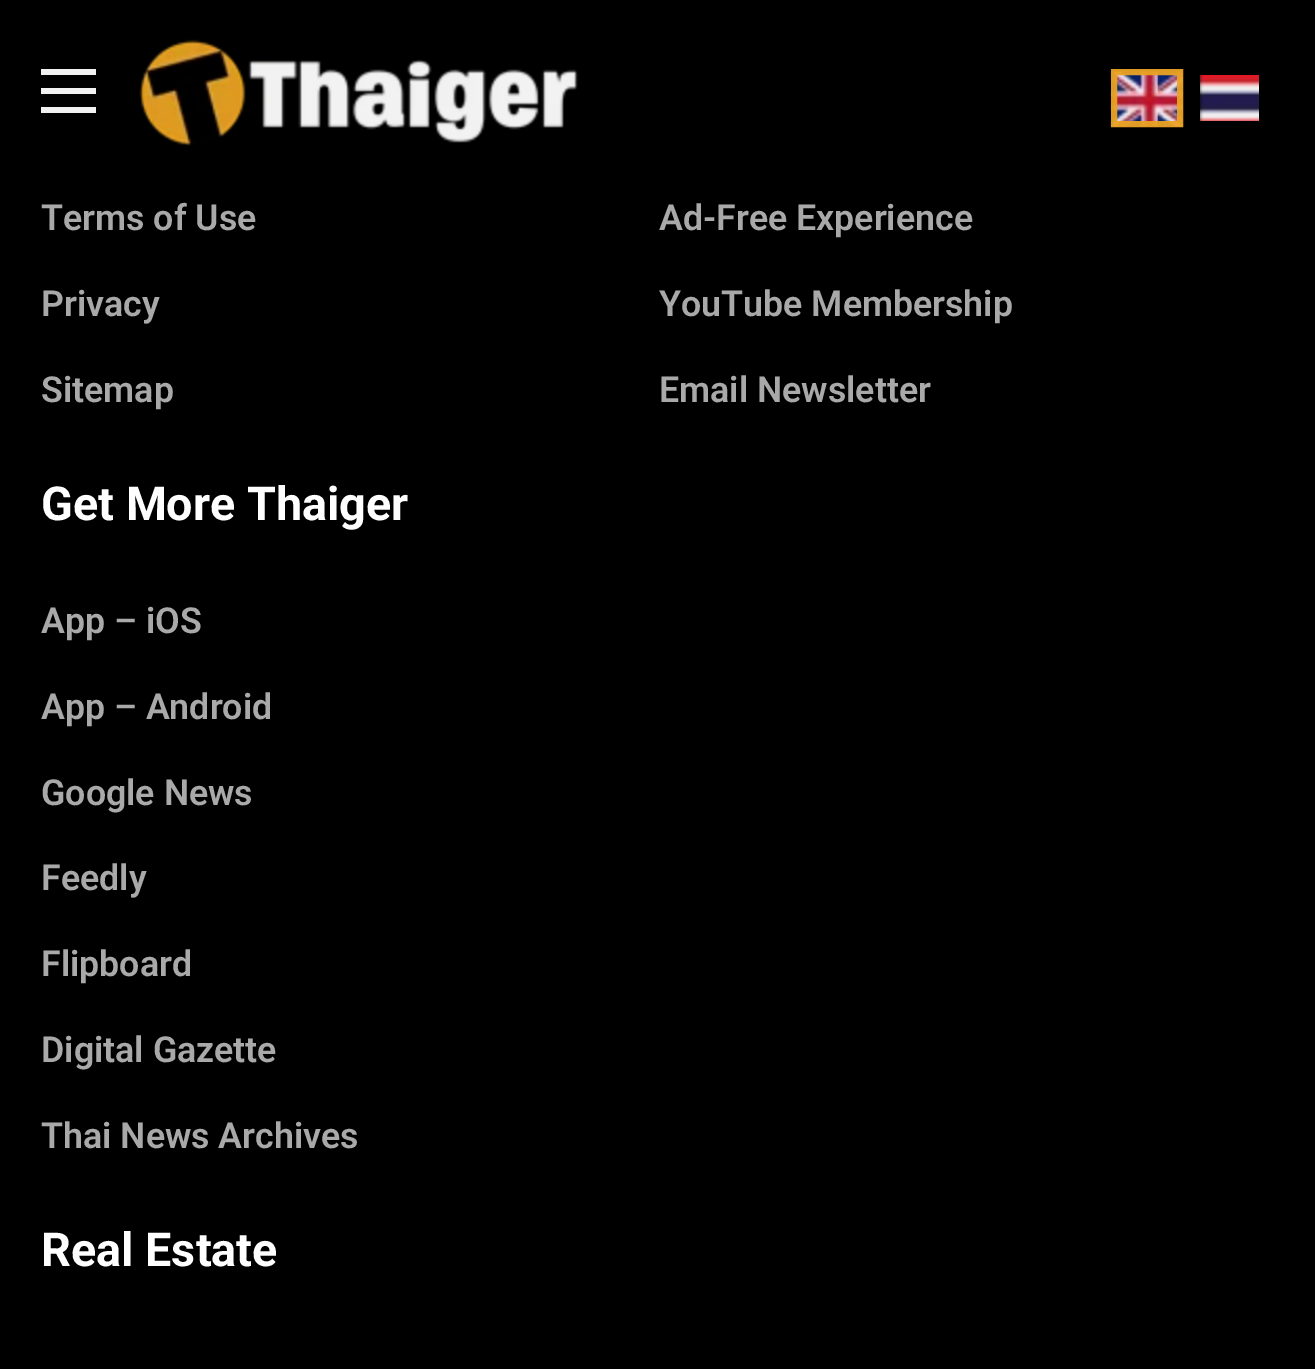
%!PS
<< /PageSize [1315 1369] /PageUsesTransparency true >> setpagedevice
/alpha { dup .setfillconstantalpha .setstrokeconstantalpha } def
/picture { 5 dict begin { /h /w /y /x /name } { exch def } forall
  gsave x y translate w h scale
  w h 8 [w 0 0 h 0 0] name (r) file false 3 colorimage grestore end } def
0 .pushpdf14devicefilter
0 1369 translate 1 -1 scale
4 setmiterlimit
0 setgray
0 0 1315 1369 rectfill
0.949 setgray
41 88 55 6 rectfill
41 69 55 6 rectfill
41 107 55 6 rectfill
(img1.rgb) 139 39 439 107 picture
(img2.rgb) 1110 71 73 56 picture
0.95 alpha
0.918 0.639 0.137 setrgbcolor
6 setlinewidth
1114 72 66 52 rectstroke
1 alpha
(img3.rgb) 1200 75 59 46 picture
/Roboto-SemiBold [35.75 0 0 -35.75 0 0] selectfont
0.667 0.663 0.663 setrgbcolor
41 230 moveto (Terms of Use) show
41 316 moveto (Privacy) show
41 402 moveto (Sitemap) show
659 230 moveto (Ad-Free Experience) show
659 316 moveto (YouTube Membership) show
659 402 moveto (Email Newsletter) show
/Roboto-Bold [46.75 0 0 -46.75 0 0] selectfont
1 setgray
41 520 moveto (Get More Thaiger) show
/Roboto-SemiBold [35.75 0 0 -35.75 0 0] selectfont
0.667 0.663 0.663 setrgbcolor
41 633 moveto (App – iOS) show
41 719 moveto (App – Android) show
41 805 moveto (Google News) show
41 890 moveto (Feedly) show
41 976 moveto (Flipboard) show
41 1062 moveto (Digital Gazette) show
41 1148 moveto (Thai News Archives) show
/Roboto-Bold [46.75 0 0 -46.75 0 0] selectfont
1 setgray
41 1266 moveto (Real Estate) show
.poppdf14devicefilter showpage
